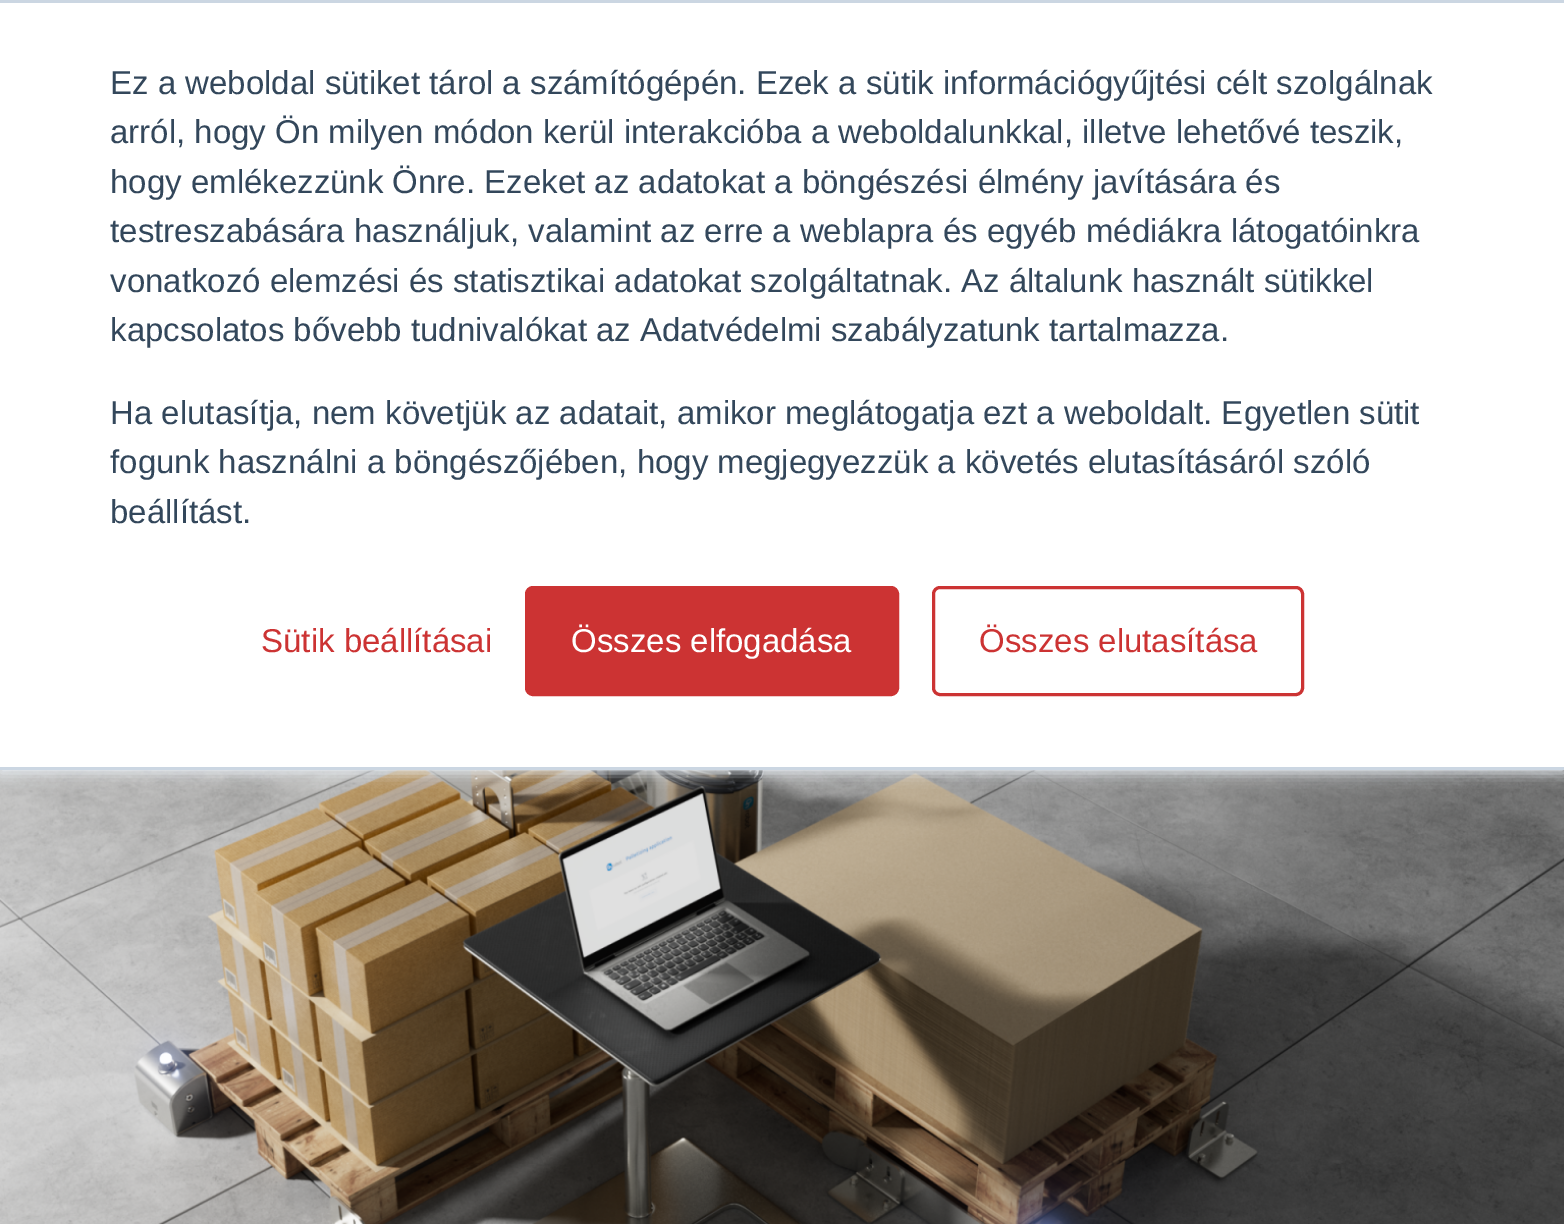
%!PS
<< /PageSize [1564 1224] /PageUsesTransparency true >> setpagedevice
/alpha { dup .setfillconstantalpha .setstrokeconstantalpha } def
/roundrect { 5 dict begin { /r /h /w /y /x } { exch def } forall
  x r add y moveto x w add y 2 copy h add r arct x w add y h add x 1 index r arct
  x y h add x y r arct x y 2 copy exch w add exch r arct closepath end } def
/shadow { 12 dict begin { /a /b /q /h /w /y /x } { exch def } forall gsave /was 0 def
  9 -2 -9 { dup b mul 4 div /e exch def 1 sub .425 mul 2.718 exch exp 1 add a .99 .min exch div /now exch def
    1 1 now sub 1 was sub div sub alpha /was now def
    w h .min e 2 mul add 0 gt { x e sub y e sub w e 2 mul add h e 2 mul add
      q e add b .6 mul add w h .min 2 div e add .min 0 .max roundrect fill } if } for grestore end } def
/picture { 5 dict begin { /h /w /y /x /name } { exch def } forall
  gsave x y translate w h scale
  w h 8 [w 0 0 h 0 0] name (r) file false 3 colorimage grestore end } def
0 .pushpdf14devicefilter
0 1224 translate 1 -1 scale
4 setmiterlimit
1 setgray
0 0 1564 1224 rectfill
(img1.rgb) 0 770 1564 454 picture
0.918 0.941 0.965 setrgbcolor
0 3 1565 770 0 7 1 shadow
1 setgray
0 3 1564 764 rectfill
0.796 0.839 0.886 setrgbcolor
0 0 1564 3 rectfill
0 767 1564 3 rectfill
/LiberationSans-Regular [33 0 0 -33 0 0] selectfont
0.2 0.278 0.357 setrgbcolor
110 94 moveto (Ez a weboldal sütiket tárol a számítógépén. Ezek a sütik információgyűjtési célt szolgálnak) show
110 143 moveto (arról, hogy Ön milyen módon kerül interakcióba a weboldalunkkal, illetve lehetővé teszik,) show
110 193 moveto (hogy emlékezzünk Önre. Ezeket az adatokat a böngészési élmény javítására és) show
110 242 moveto (testreszabására használjuk, valamint az erre a weblapra és egyéb médiákra látogatóinkra) show
110 292 moveto (vonatkozó elemzési és statisztikai adatokat szolgáltatnak. Az általunk használt sütikkel) show
110 341 moveto (kapcsolatos bővebb tudnivalókat az Adatvédelmi szabályzatunk tartalmazza.) show
110 424 moveto (Ha elutasítja, nem követjük az adatait, amikor meglátogatja ezt a weboldalt. Egyetlen sütit) show
110 473 moveto (fogunk használni a böngészőjében, hogy megjegyezzük a követés elutasításáról szóló) show
110 523 moveto (beállítást.) show
0.8 0.2 0.2 setrgbcolor
261 652 moveto (Sütik beállításai) show
526.5 587.5 371 107 6.5 roundrect gsave fill grestore
3 setlinewidth
stroke
1 setgray
571 652 moveto (Összes elfogadása) show
0.8 0.2 0.2 setrgbcolor
933.5 587.5 369 107 6.5 roundrect stroke
979 652 moveto (Összes elutasítása) show
.poppdf14devicefilter showpage
